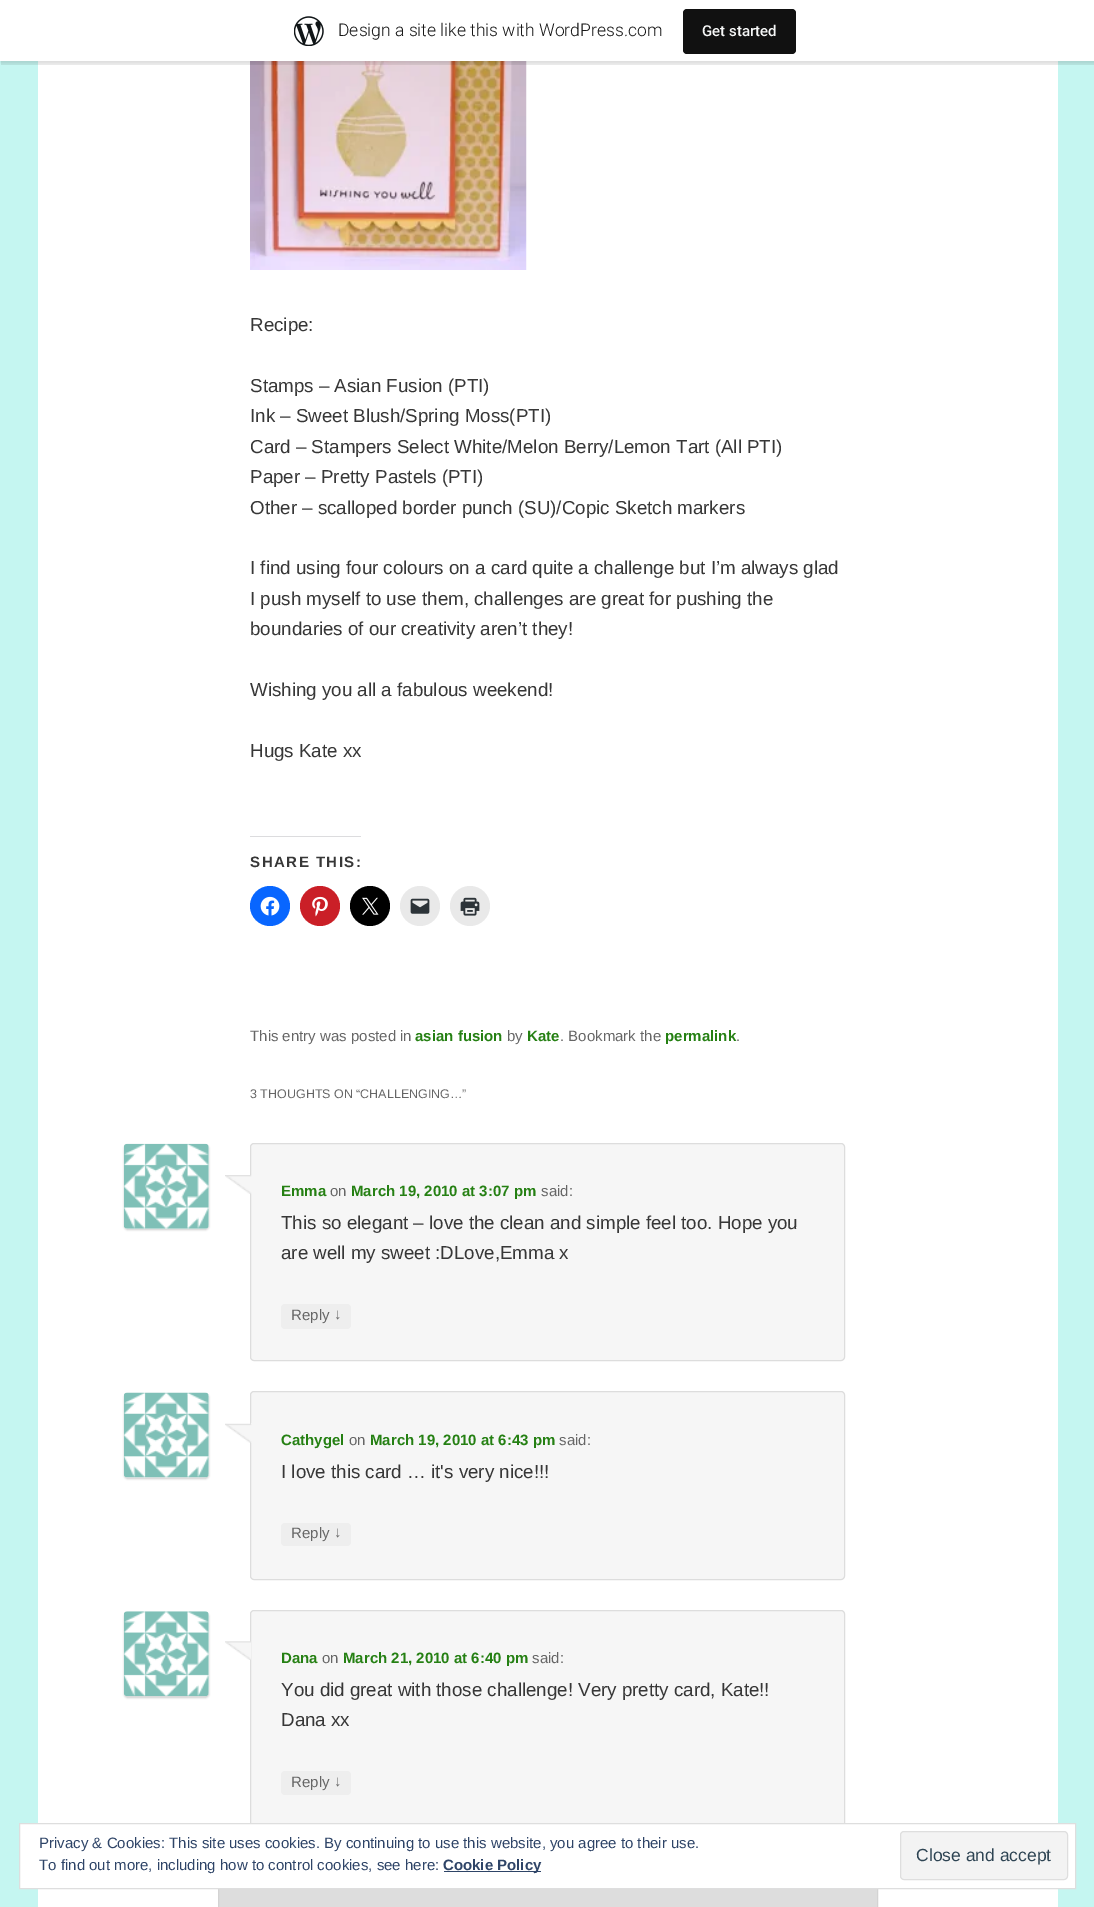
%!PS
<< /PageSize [1094 1907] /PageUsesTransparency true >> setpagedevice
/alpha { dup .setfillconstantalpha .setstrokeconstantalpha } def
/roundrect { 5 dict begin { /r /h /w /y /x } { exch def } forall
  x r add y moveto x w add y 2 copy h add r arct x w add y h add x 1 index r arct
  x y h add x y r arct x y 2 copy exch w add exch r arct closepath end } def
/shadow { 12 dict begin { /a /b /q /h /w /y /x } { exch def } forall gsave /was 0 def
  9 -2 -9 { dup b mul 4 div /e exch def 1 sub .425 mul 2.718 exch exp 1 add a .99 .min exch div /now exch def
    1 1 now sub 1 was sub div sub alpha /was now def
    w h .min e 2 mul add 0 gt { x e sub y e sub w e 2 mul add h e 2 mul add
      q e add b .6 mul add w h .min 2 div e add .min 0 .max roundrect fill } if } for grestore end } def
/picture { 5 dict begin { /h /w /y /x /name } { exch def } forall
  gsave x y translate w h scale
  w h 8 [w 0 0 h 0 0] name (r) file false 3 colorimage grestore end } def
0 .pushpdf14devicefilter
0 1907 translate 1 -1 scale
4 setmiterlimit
0.773 0.965 0.945 setrgbcolor
0 0 1094 1907 rectfill
1 setgray
38 61 1020 1846 rectfill
(img2.rgb) 250 61 277 209 picture
0 setgray
0 1 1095 62 0 1 0.05 shadow
0.08 alpha
newpath 1 61 moveto 1 65 lineto 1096 65 lineto 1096 4 lineto 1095 4 lineto 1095 61 lineto closepath fill
1 alpha
1 setgray
0 0 1094 61 rectfill
(img1.rgb) 294 16 30 30 picture
/Roboto-Light [17.5 0 0 -17.5 0 0] selectfont
0.09 setgray
338 36 moveto (Design a site like this with WordPress.com) show
0.067 setgray
683 9 113 45 4 roundrect fill
/Roboto-Medium [15 0 0 -15 0 0] selectfont
0.965 0.969 0.969 setrgbcolor
702 36 moveto (Get started) show
/LiberationSans-Regular [18.75 0 0 -18.75 0 0] selectfont
0.216 setgray
250 331 moveto (Recipe:) show
250 392 moveto (Stamps – Asian Fusion \(PTI\)) show
250 422 moveto (Ink – Sweet Blush/Spring Moss\(PTI\)) show
250 453 moveto (Card – Stampers Select White/Melon Berry/Lemon Tart \(All PTI\)) show
250 483 moveto (Paper – Pretty Pastels \(PTI\)) show
250 514 moveto (Other – scalloped border punch \(SU\)/Copic Sketch markers) show
250 574 moveto (I find using four colours on a card quite a challenge but I’m always glad) show
250 605 moveto (I push myself to use them, challenges are great for pushing the) show
250 635 moveto (boundaries of our creativity aren’t they!) show
250 696 moveto (Wishing you all a fabulous weekend!) show
250 757 moveto (Hugs Kate xx) show
0.863 0.863 0.871 setrgbcolor
250 836 111 1 rectfill
/LiberationSans-Bold [15 0 0 -15 0 0] selectfont
0.216 setgray
250 867 moveto 1.5 0 (SHARE THIS:) ashow
0.031 0.4 1 setrgbcolor
newpath 270 906 20 0 360 arc closepath fill
(img3.rgb) 260 896 20 20 picture
0.792 0.122 0.153 setrgbcolor
newpath 320 906 20 0 360 arc closepath fill
(img4.rgb) 312 896 16 21 picture
0 setgray
newpath 370 906 20 0 360 arc closepath fill
(img5.rgb) 362 897 17 18 picture
0.914 setgray
newpath 420 906 20 0 360 arc closepath fill
(img6.rgb) 410 898 20 16 picture
newpath 470 906 20 0 360 arc closepath fill
(img7.rgb) 460 897 20 19 picture
/LiberationSans-Regular [15 0 0 -15 0 0] selectfont
0.4 setgray
250 1041 moveto (This entry was posted in) show
/LiberationSans-Bold [15 0 0 -15 0 0] selectfont
0.145 0.502 0.075 setrgbcolor
415 1041 moveto (asian fusion) show
/LiberationSans-Regular [15 0 0 -15 0 0] selectfont
0.4 setgray
507 1041 moveto (by) show
/LiberationSans-Bold [15 0 0 -15 0 0] selectfont
0.145 0.502 0.075 setrgbcolor
527 1041 moveto (Kate) show
/LiberationSans-Regular [15 0 0 -15 0 0] selectfont
0.4 setgray
560 1041 moveto (. Bookmark the) show
/LiberationSans-Bold [15 0 0 -15 0 0] selectfont
0.145 0.502 0.075 setrgbcolor
665 1041 moveto (permalink) show
/LiberationSans-Regular [15 0 0 -15 0 0] selectfont
0.4 setgray
736 1041 moveto (.) show
/LiberationSans-Regular [12.5 0 0 -12.5 0 0] selectfont
250 1098 moveto (3 THOUGHTS ON “CHALLENGING…”) show
0.965 setgray
250.5 1143.5 594 217 3.5 roundrect gsave fill grestore
0.867 setgray
stroke
(img8.rgb) 225 1175 27 19 picture
0.8 setgray
124 1145 85 85 4 1 1 shadow
(img9.rgb) 123 1143 86 86 picture
/LiberationSans-Bold [15 0 0 -15 0 0] selectfont
0.145 0.502 0.075 setrgbcolor
281 1196 moveto (Emma) show
/LiberationSans-Regular [15 0 0 -15 0 0] selectfont
0.4 setgray
330 1196 moveto (on) show
/LiberationSans-Bold [15 0 0 -15 0 0] selectfont
0.145 0.502 0.075 setrgbcolor
351 1196 moveto (March 19, 2010 at 3:07 pm) show
/LiberationSans-Regular [15 0 0 -15 0 0] selectfont
0.4 setgray
541 1196 moveto (said:) show
/LiberationSans-Regular [18.75 0 0 -18.75 0 0] selectfont
0.216 setgray
281 1229 moveto (This so elegant – love the clean and simple feel too. Hope you) show
281 1259 moveto (are well my sweet :DLove,Emma x) show
0.933 setgray
281 1304 70 25 4 roundrect fill
/LiberationSans-Regular [15 0 0 -15 0 0] selectfont
0.4 setgray
291 1320 moveto (Reply) show
334 1319 moveto (↓) show
0.965 setgray
250.5 1391.5 594 188 3.5 roundrect gsave fill grestore
0.867 setgray
stroke
(img10.rgb) 225 1423 27 20 picture
0.8 setgray
124 1394 85 85 4 1 1 shadow
(img11.rgb) 123 1392 86 86 picture
/LiberationSans-Bold [15 0 0 -15 0 0] selectfont
0.145 0.502 0.075 setrgbcolor
281 1445 moveto (Cathygel) show
/LiberationSans-Regular [15 0 0 -15 0 0] selectfont
0.4 setgray
349 1445 moveto (on) show
/LiberationSans-Bold [15 0 0 -15 0 0] selectfont
0.145 0.502 0.075 setrgbcolor
370 1445 moveto (March 19, 2010 at 6:43 pm) show
/LiberationSans-Regular [15 0 0 -15 0 0] selectfont
0.4 setgray
559 1445 moveto (said:) show
/LiberationSans-Regular [18.75 0 0 -18.75 0 0] selectfont
0.216 setgray
281 1478 moveto (I love this card … it's very nice!!!) show
0.933 setgray
281 1523 70 23 4 roundrect fill
/LiberationSans-Regular [15 0 0 -15 0 0] selectfont
0.4 setgray
291 1538 moveto (Reply) show
334 1537 moveto (↓) show
0.965 setgray
250.5 1610.5 594 218 3.5 roundrect gsave fill grestore
0.867 setgray
stroke
(img12.rgb) 225 1641 26 19 picture
0.8 setgray
124 1613 85 85 4 1 1 shadow
(img13.rgb) 123 1611 86 86 picture
/LiberationSans-Bold [15 0 0 -15 0 0] selectfont
0.145 0.502 0.075 setrgbcolor
281 1663 moveto (Dana) show
/LiberationSans-Regular [15 0 0 -15 0 0] selectfont
0.4 setgray
322 1663 moveto (on) show
/LiberationSans-Bold [15 0 0 -15 0 0] selectfont
0.145 0.502 0.075 setrgbcolor
343 1663 moveto (March 21, 2010 at 6:40 pm) show
/LiberationSans-Regular [15 0 0 -15 0 0] selectfont
0.4 setgray
532 1663 moveto (said:) show
/LiberationSans-Regular [18.75 0 0 -18.75 0 0] selectfont
0.216 setgray
281 1696 moveto (You did great with those challenge! Very pretty card, Kate!!) show
281 1726 moveto (Dana xx) show
0.933 setgray
281 1771 70 24 4 roundrect fill
/LiberationSans-Regular [15 0 0 -15 0 0] selectfont
0.4 setgray
291 1787 moveto (Reply) show
334 1786 moveto (↓) show
0.867 setgray
219 1889 658 18 rectfill
0.827 setgray
218.5 1859.5 659 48 rectstroke
1 setgray
newpath 19.5 1823.5 moveto 1075.5 1823.5 lineto 1075.5 1888.5 lineto 19.5 1888.5 lineto closepath gsave fill grestore
0.871 setgray
stroke
0.18 0.267 0.404 setrgbcolor
39 1848 moveto (Privacy & Cookies: This site uses cookies. By continuing to use this website, you agree to their use.) show
0.953 setgray
900.5 1831.5 167 48 3.5 roundrect gsave fill grestore
0.871 setgray
stroke
/LiberationSans-Regular [17.5 0 0 -17.5 0 0] selectfont
0.18 0.267 0.325 setrgbcolor
916 1861 moveto (Close and accept) show
/LiberationSans-Regular [15 0 0 -15 0 0] selectfont
0.18 0.267 0.404 setrgbcolor
39 1870 moveto (To find out more, including how to control cookies, see here:) show
444 1871 97 1 rectfill
/LiberationSans-Bold [15 0 0 -15 0 0] selectfont
443 1870 moveto (Cookie Policy) show
.poppdf14devicefilter showpage
